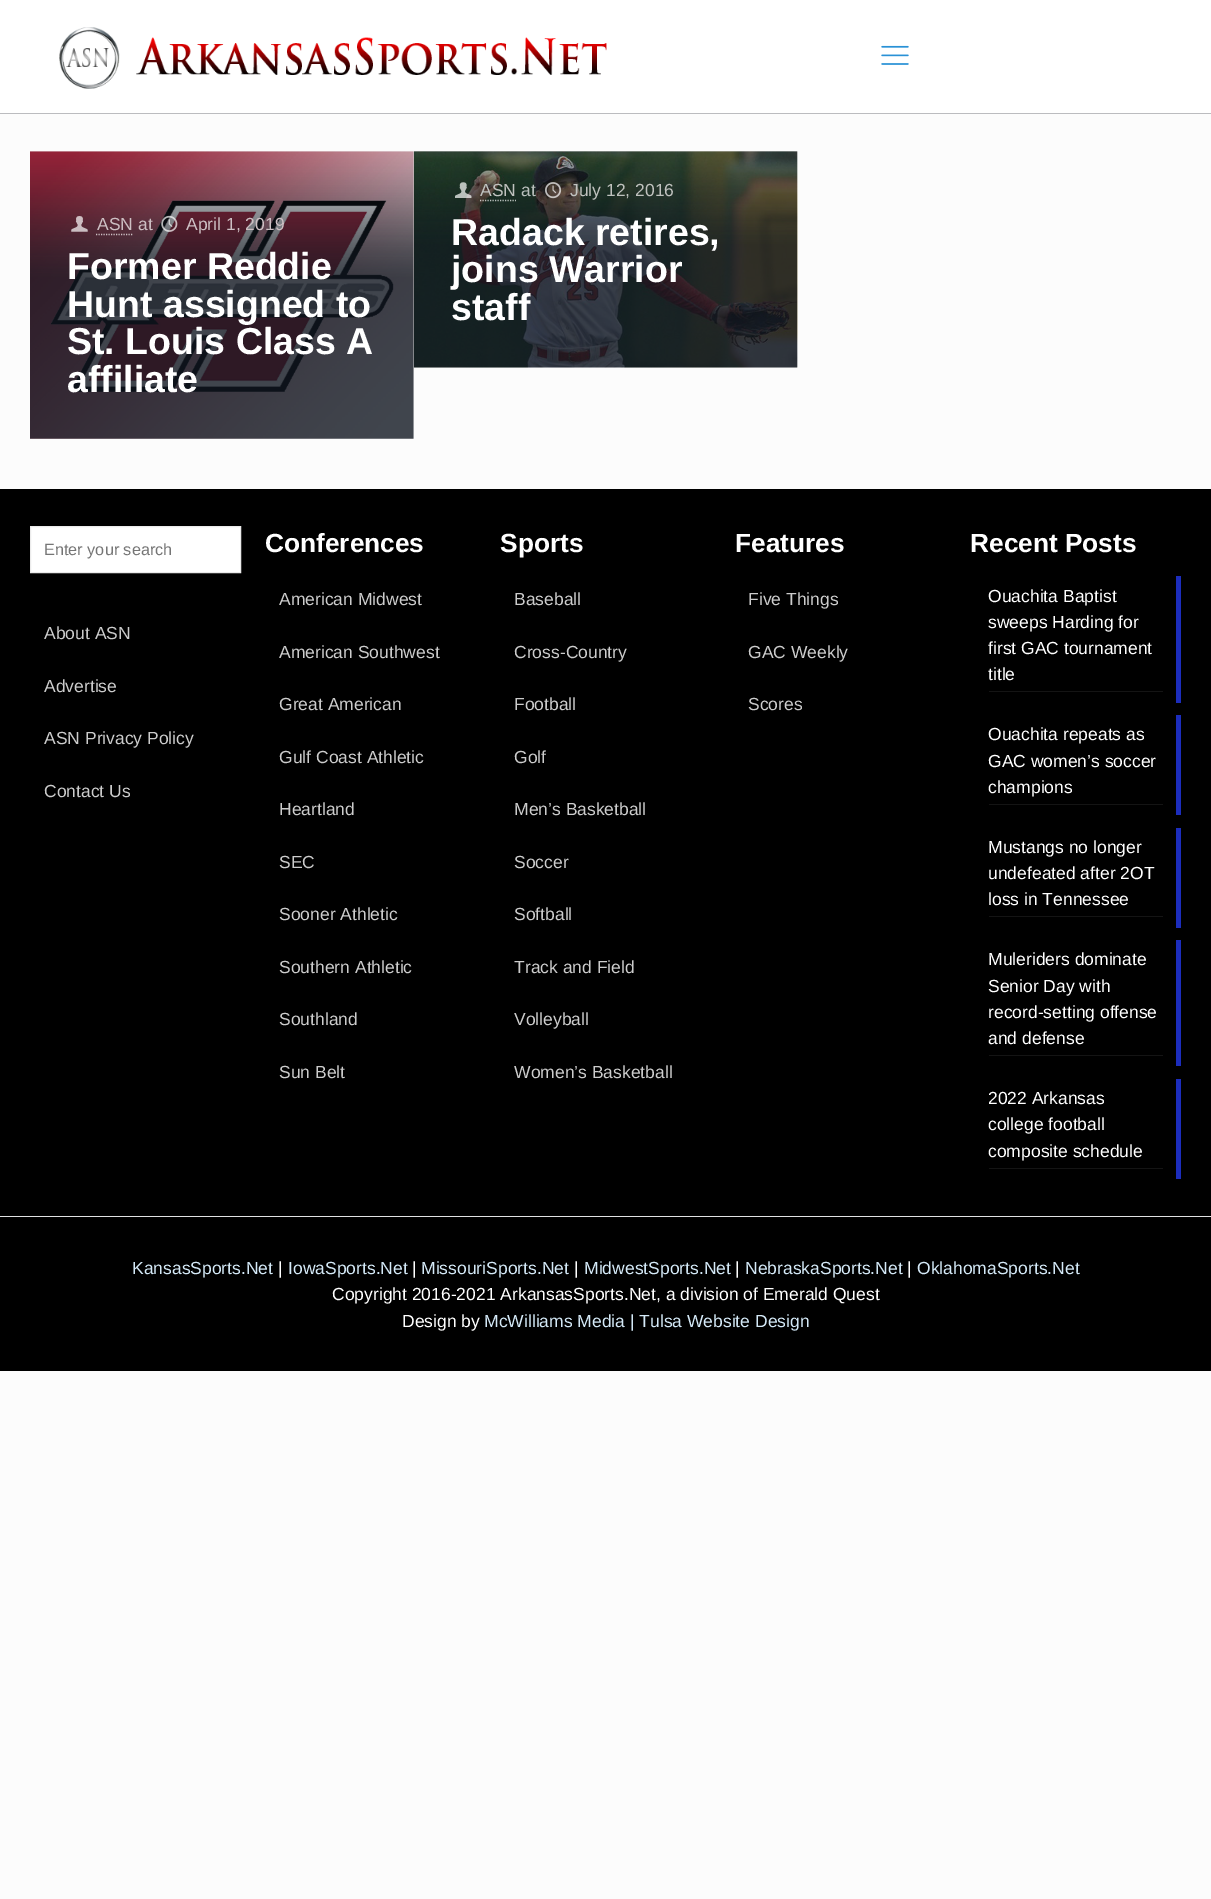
%!PS
<< /PageSize [1211 1899] /PageUsesTransparency true >> setpagedevice
/alpha { dup .setfillconstantalpha .setstrokeconstantalpha } def
/picture { 5 dict begin { /h /w /y /x /name } { exch def } forall
  gsave x y translate w h scale
  w h 8 [w 0 0 h 0 0] name (r) file false 3 colorimage grestore end } def
0 .pushpdf14devicefilter
0 1899 translate 1 -1 scale
4 setmiterlimit
0.988 setgray
0 0 1211 1899 rectfill
1 setgray
0 0 1211 113 rectfill
0.733 0.737 0.749 setrgbcolor
0 113 1211 1 rectfill
(img1.rgb) 59 27 548 62 picture
(img2.rgb) 881 45 28 20 picture
(img3.rgb) 30 151 384 288 picture
(img4.rgb) 30 151 384 288 picture
(img5.rgb) 71 216 17 16 picture
/LiberationSans-Regular [17.5 0 0 -17.5 0 0] selectfont
0.804 0.749 0.765 setrgbcolor
97 230 moveto (ASN) show
0.7 alpha
1 setgray
1.2 setlinewidth
[1.25 1.25] 0 setdash
newpath 96 234.5 moveto 132.5 234.5 lineto stroke
1 alpha
0.804 0.749 0.765 setrgbcolor
138 230 moveto (at) show
(img6.rgb) 161 215 17 17 picture
186 230 moveto (April 1, 2019) show
/LiberationSans-Bold [37.5 0 0 -37.5 0 0] selectfont
1 setgray
67 279 moveto (Former Reddie) show
67 317 moveto (Hunt assigned to) show
67 354 moveto (St. Louis Class A) show
67 392 moveto (affiliate) show
(img7.rgb) 413 151 385 217 picture
(img8.rgb) 413 151 385 217 picture
(img9.rgb) 455 182 17 16 picture
/LiberationSans-Regular [17.5 0 0 -17.5 0 0] selectfont
0.753 0.761 0.749 setrgbcolor
480 196 moveto (ASN) show
0.7 alpha
1 setgray
newpath 480 200.5 moveto 516 200.5 lineto stroke
1 alpha
0.729 0.753 0.741 setrgbcolor
521 196 moveto (at) show
(img10.rgb) 545 182 17 17 picture
0.753 0.761 0.749 setrgbcolor
570 196 moveto (July 12, 2016) show
/LiberationSans-Bold [37.5 0 0 -37.5 0 0] selectfont
1 setgray
451 245 moveto (Radack retires,) show
451 282 moveto (joins Warrior) show
451 320 moveto (staff) show
0 setgray
0 489 1211 882 rectfill
1 setgray
newpath 30.5 526.5 moveto 240.5 526.5 lineto 240.5 572.5 lineto 30.5 572.5 lineto closepath gsave fill grestore
0.922 setgray
1 setlinewidth
[] 0 setdash
stroke
/LiberationSans-Regular [16.25 0 0 -16.25 0 0] selectfont
0.459 setgray
44 555 moveto (Enter your search) show
/LiberationSans-Regular [17.5 0 0 -17.5 0 0] selectfont
0.8 setgray
44 639 moveto (About ASN) show
44 692 moveto (Advertise) show
44 744 moveto (ASN Privacy Policy) show
44 797 moveto (Contact Us) show
/LiberationSans-Bold [26.25 0 0 -26.25 0 0] selectfont
1 setgray
265 552 moveto (Conferences) show
/LiberationSans-Regular [17.5 0 0 -17.5 0 0] selectfont
0.8 setgray
279 605 moveto (American Midwest) show
279 658 moveto (American Southwest) show
279 710 moveto (Great American) show
279 763 moveto (Gulf Coast Athletic) show
279 815 moveto (Heartland) show
279 868 moveto (SEC) show
279 920 moveto (Sooner Athletic) show
279 973 moveto (Southern Athletic) show
279 1025 moveto (Southland) show
279 1078 moveto (Sun Belt) show
/LiberationSans-Bold [26.25 0 0 -26.25 0 0] selectfont
1 setgray
500 552 moveto (Sports) show
/LiberationSans-Regular [17.5 0 0 -17.5 0 0] selectfont
0.8 setgray
514 605 moveto (Baseball) show
514 658 moveto (Cross-Country) show
514 710 moveto (Football) show
514 763 moveto (Golf) show
514 815 moveto (Men’s Basketball) show
514 868 moveto (Soccer) show
514 920 moveto (Softball) show
514 973 moveto (Track and Field) show
514 1025 moveto (Volleyball) show
514 1078 moveto (Women’s Basketball) show
/LiberationSans-Bold [26.25 0 0 -26.25 0 0] selectfont
1 setgray
735 552 moveto (Features) show
/LiberationSans-Regular [17.5 0 0 -17.5 0 0] selectfont
0.8 setgray
748 605 moveto (Five Things) show
748 658 moveto (GAC Weekly) show
748 710 moveto (Scores) show
/LiberationSans-Bold [26.25 0 0 -26.25 0 0] selectfont
1 setgray
970 552 moveto (Recent Posts) show
0.078 setgray
989 691 174 1 rectfill
/LiberationSans-Regular [17.5 0 0 -17.5 0 0] selectfont
1 setgray
988 602 moveto (Ouachita Baptist) show
988 628 moveto (sweeps Harding for) show
988 654 moveto (first GAC tournament) show
988 680 moveto (title) show
0.11 0.176 0.741 setrgbcolor
1176 576 5 127 rectfill
0.078 setgray
989 804 174 1 rectfill
1 setgray
988 740 moveto (Ouachita repeats as) show
988 767 moveto (GAC women’s soccer) show
988 793 moveto (champions) show
0.11 0.176 0.741 setrgbcolor
1176 715 5 100 rectfill
0.078 setgray
989 916 174 1 rectfill
1 setgray
988 853 moveto (Mustangs no longer) show
988 879 moveto (undefeated after 2OT) show
988 905 moveto (loss in Tennessee) show
0.11 0.176 0.741 setrgbcolor
1176 828 5 100 rectfill
0.078 setgray
989 1055 174 1 rectfill
1 setgray
988 965 moveto (Muleriders dominate) show
988 992 moveto (Senior Day with) show
988 1018 moveto (record-setting offense) show
988 1044 moveto (and defense) show
0.11 0.176 0.741 setrgbcolor
1176 940 5 126 rectfill
0.078 setgray
989 1168 174 1 rectfill
1 setgray
988 1104 moveto (2022 Arkansas) show
988 1130 moveto (college football) show
988 1157 moveto (composite schedule) show
0.11 0.176 0.741 setrgbcolor
1176 1079 5 100 rectfill
0.878 0.882 0.886 setrgbcolor
0 1216 1211 1 rectfill
0.831 0.914 0.969 setrgbcolor
132 1274 moveto (KansasSports.Net) show
1 setgray
278 1274 moveto (|) show
0.831 0.914 0.969 setrgbcolor
288 1274 moveto (IowaSports.Net) show
1 setgray
412 1274 moveto (|) show
0.831 0.914 0.969 setrgbcolor
421 1274 moveto (MissouriSports.Net) show
1 setgray
574 1274 moveto (|) show
0.831 0.914 0.969 setrgbcolor
584 1274 moveto (MidwestSports.Net) show
1 setgray
735 1274 moveto (|) show
0.831 0.914 0.969 setrgbcolor
745 1274 moveto (NebraskaSports.Net) show
1 setgray
907 1274 moveto (|) show
0.831 0.914 0.969 setrgbcolor
917 1274 moveto (OklahomaSports.Net) show
1 setgray
332 1300 moveto (Copyright 2016-2021 ArkansasSports.Net, a division of Emerald Quest) show
402 1327 moveto (Design by) show
0.831 0.914 0.969 setrgbcolor
484 1327 moveto (McWilliams Media | Tulsa Website Design) show
.poppdf14devicefilter showpage
